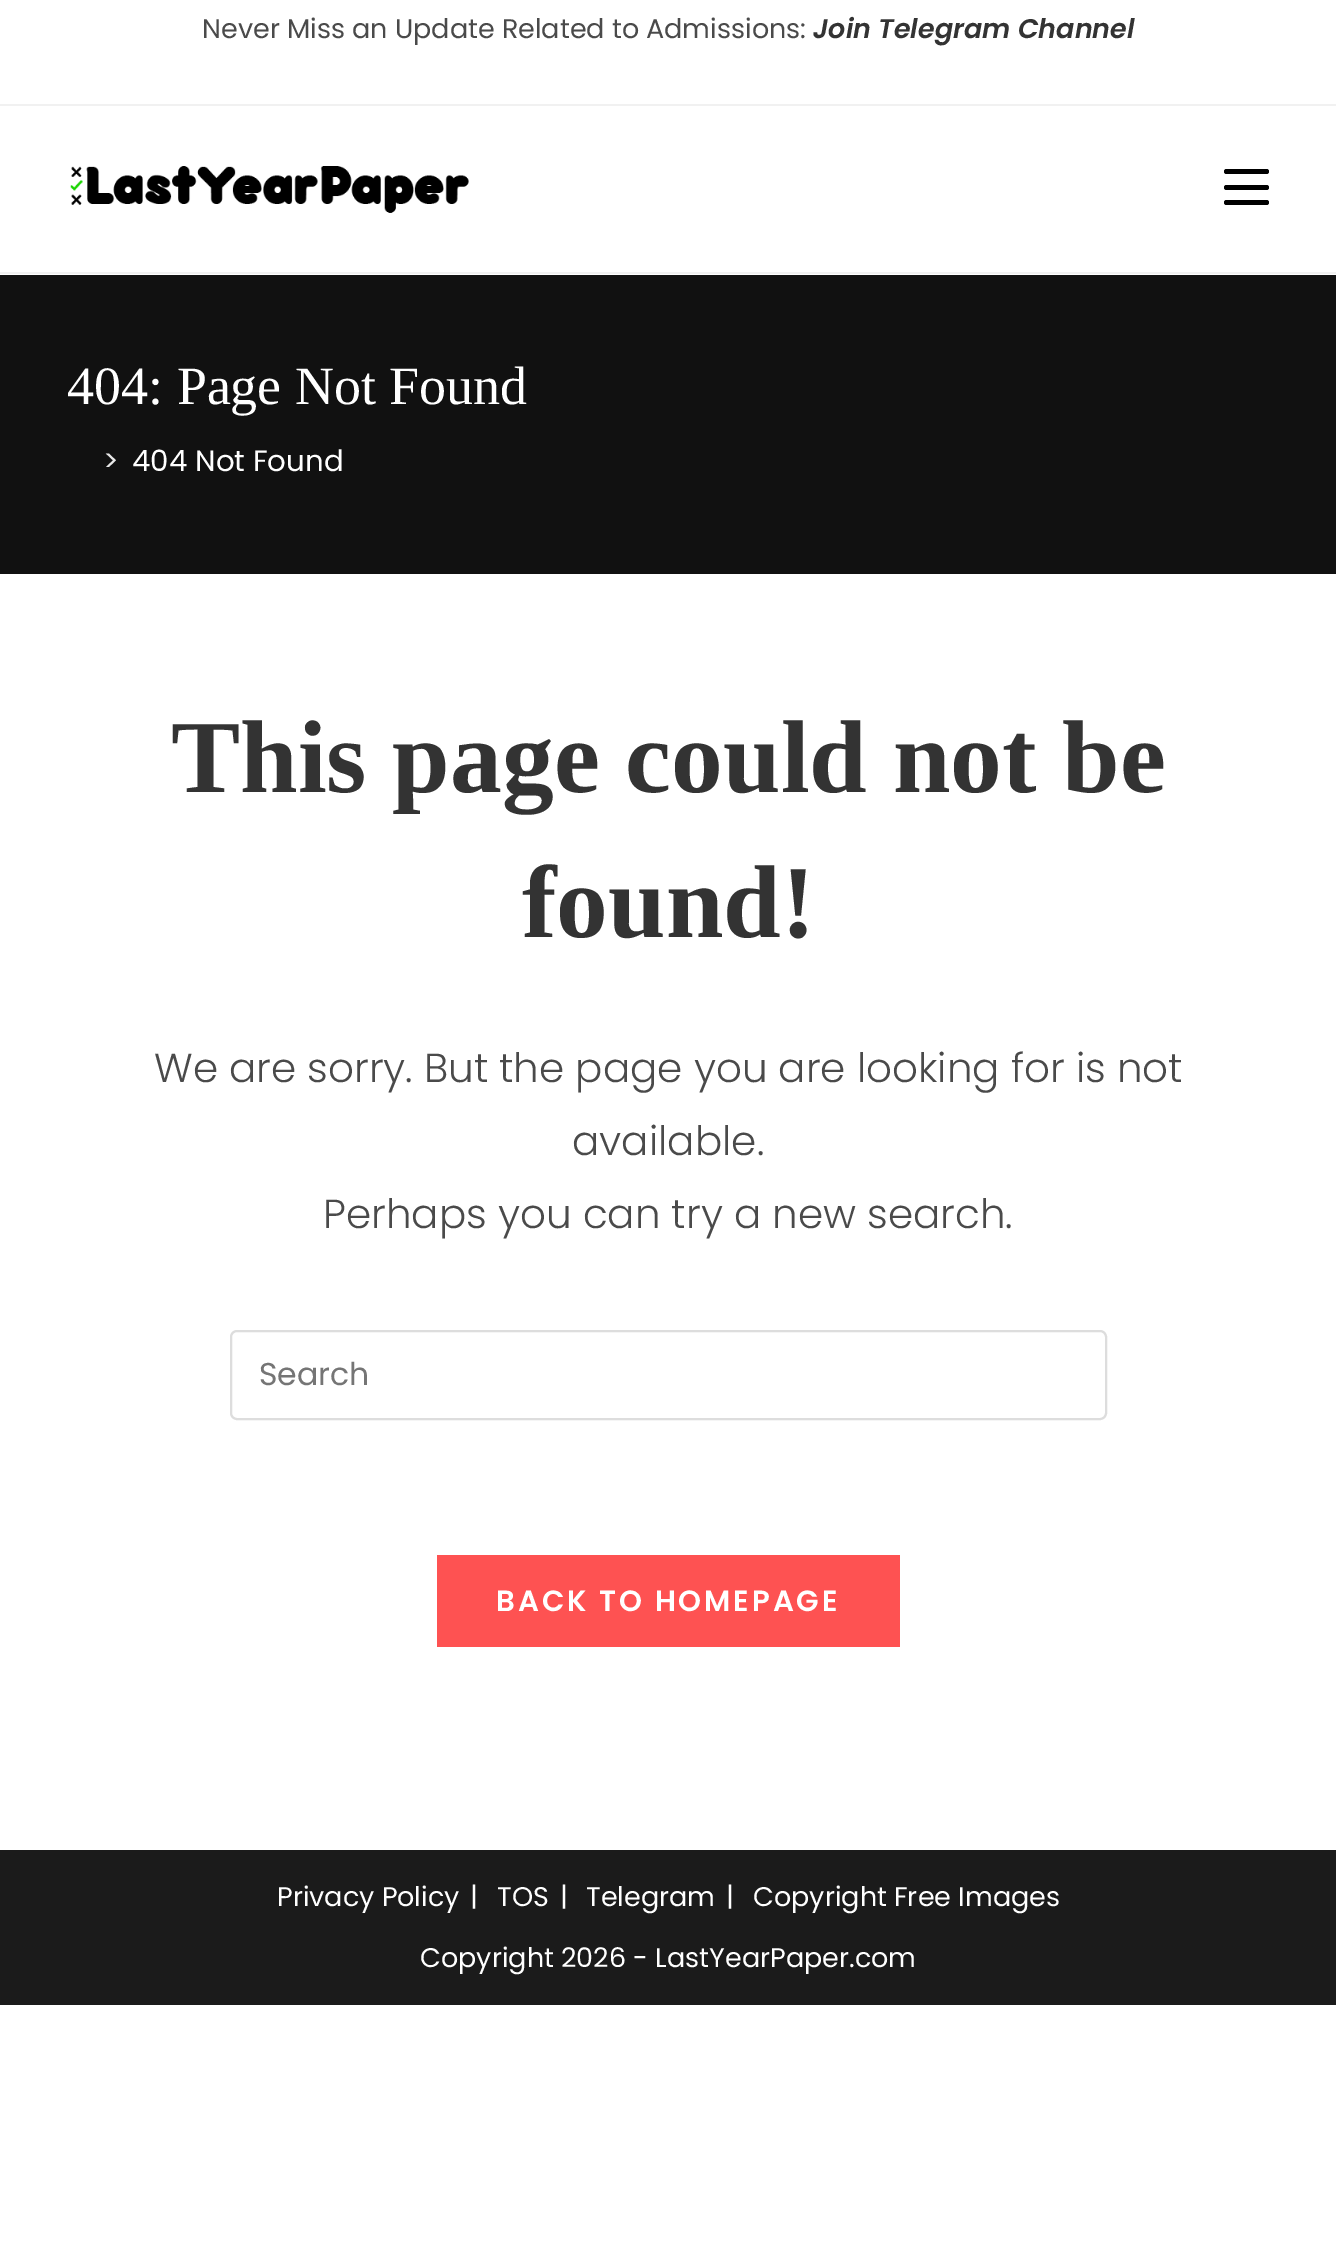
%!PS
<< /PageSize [1336 2246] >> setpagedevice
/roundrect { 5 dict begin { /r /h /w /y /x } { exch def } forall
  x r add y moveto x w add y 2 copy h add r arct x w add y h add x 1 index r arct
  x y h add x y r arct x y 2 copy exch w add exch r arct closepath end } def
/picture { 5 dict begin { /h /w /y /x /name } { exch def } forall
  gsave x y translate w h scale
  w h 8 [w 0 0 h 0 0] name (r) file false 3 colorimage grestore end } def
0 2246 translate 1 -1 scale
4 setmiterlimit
1 setgray
0 0 1336 2246 rectfill
0.945 setgray
0 104 1336 2 rectfill
/Poppins-Regular [27 0 0 -27 0 0] selectfont
0.29 setgray
202 38 moveto (Never Miss an Update Related to Admissions:) show
/Poppins-SemiBoldItalic [27 0 0 -27 0 0] selectfont
0.2 setgray
813 38 moveto (Join Telegram Channel) show
0.945 setgray
0 272 1336 2 rectfill
(img1.rgb) 70 166 399 47 picture
0 setgray
1224 185 45 5 2.5 roundrect fill
1224 169 45 5 2.5 roundrect fill
1224 200 45 5 2.5 roundrect fill
0.067 setgray
0 275 1336 299 rectfill
/LiberationSerif-Regular [54 0 0 -54 0 0] selectfont
1 setgray
67 404 moveto (404: Page Not Found) show
/Poppins-Regular [29.25 0 0 -29.25 0 0] selectfont
0.91 setgray
103 471 moveto (>) show
1 setgray
132 471 moveto (404 Not Found) show
/LiberationSerif-Bold [103.5 0 0 -103.5 0 0] selectfont
0.2 setgray
171 792 moveto (This page could not be) show
522 937 moveto (found!) show
/Poppins-Light [40.5 0 0 -40.5 0 0] selectfont
0.29 setgray
154 1082 moveto (We are sorry. But the page you are looking for is not) show
572 1155 moveto (available.) show
323 1228 moveto (Perhaps you can try a new search.) show
0.867 setgray
2 setlinewidth
231 1331 875 88 6 roundrect stroke
/Poppins-Regular [31.5 0 0 -31.5 0 0] selectfont
0.459 setgray
259 1385 moveto (Search) show
0.996 0.322 0.322 setrgbcolor
437 1555 463 92 rectfill
/Poppins-SemiBold [29.25 0 0 -29.25 0 0] selectfont
1 setgray
496 1611 moveto 2.9 0 (BACK TO HOMEPAGE) ashow
0.106 setgray
0 1850 1336 155 rectfill
/Poppins-Regular [27 0 0 -27 0 0] selectfont
1 setgray
277 1906 moveto (Privacy Policy) show
470 1906 moveto (|) show
497 1906 moveto (TOS) show
560 1906 moveto (|) show
586 1906 moveto (Telegram) show
726 1906 moveto (|) show
753 1906 moveto (Copyright Free Images) show
420 1967 moveto (Copyright 2026 - LastYearPaper.com) show
showpage
